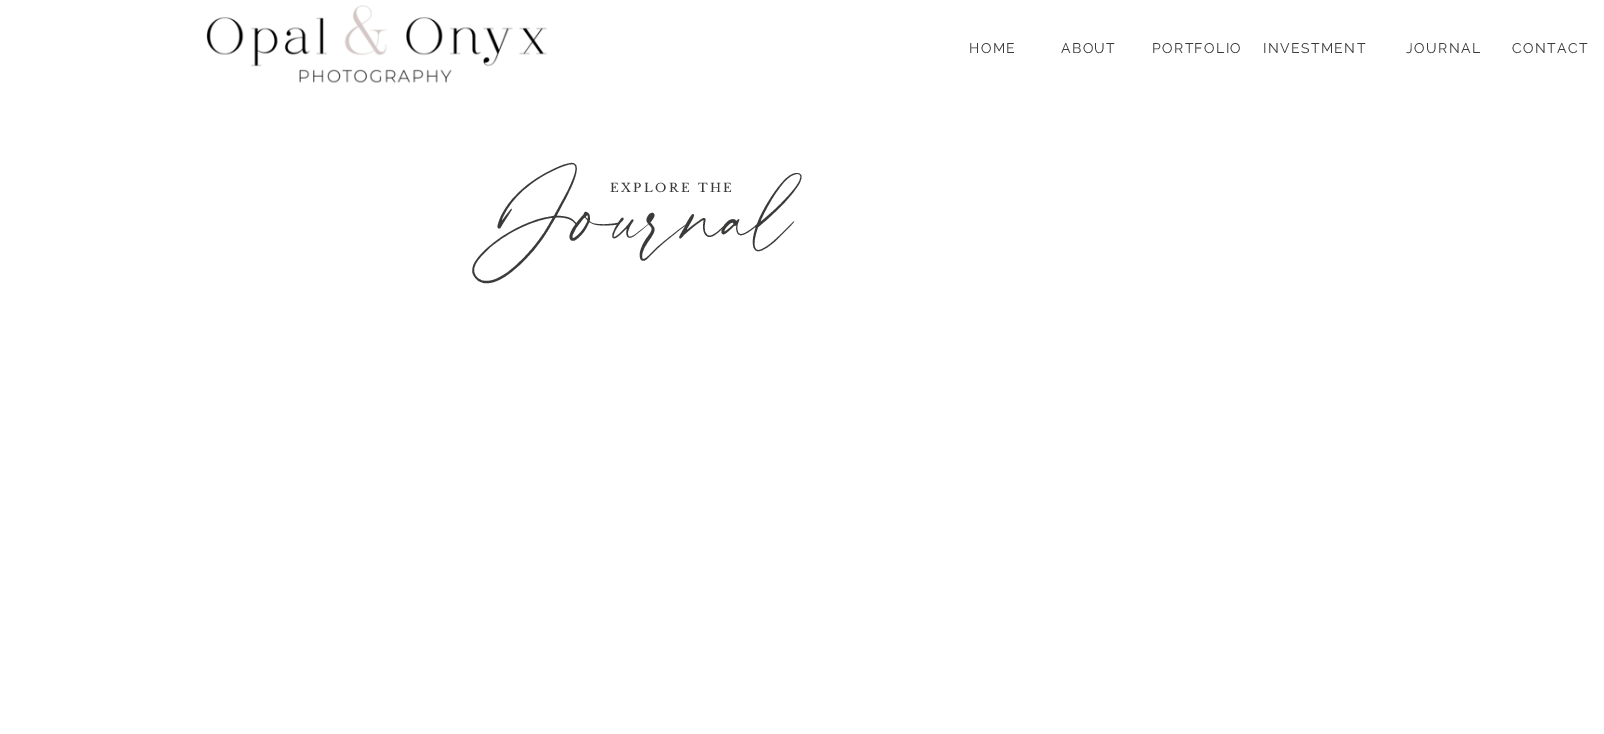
%!PS
<< /PageSize [1604 734] >> setpagedevice
/picture { 5 dict begin { /h /w /y /x /name } { exch def } forall
  gsave x y translate w h scale
  w h 8 [w 0 0 h 0 0] name (r) file false 3 colorimage grestore end } def
0 734 translate 1 -1 scale
4 setmiterlimit
1 setgray
0 0 1604 734 rectfill
(img1.rgb) 206 5 341 78 picture
/Raleway-Thin [14 0 0 -14 0 0] selectfont
0.227 0.227 0.224 setrgbcolor
969 53 moveto 1.4 0 (HOME) ashow
1061 53 moveto 1.4 0 (ABOUT) ashow
1152 53 moveto 1.4 0 (PORTFOLIO) ashow
1263 53 moveto 1.4 0 (INVESTMENT) ashow
1406 53 moveto 1.4 0 (JOURNAL) ashow
1512 53 moveto 1.4 0 (CONTACT) ashow
/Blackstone-Black [100 0 0 -100 0 0] selectfont
472 254 moveto (Journal) show
/LibreBaskerville-Regular [12 0 0 -12 0 0] selectfont
610 192 moveto 2.4 0 (EXPLORE THE) ashow
showpage
